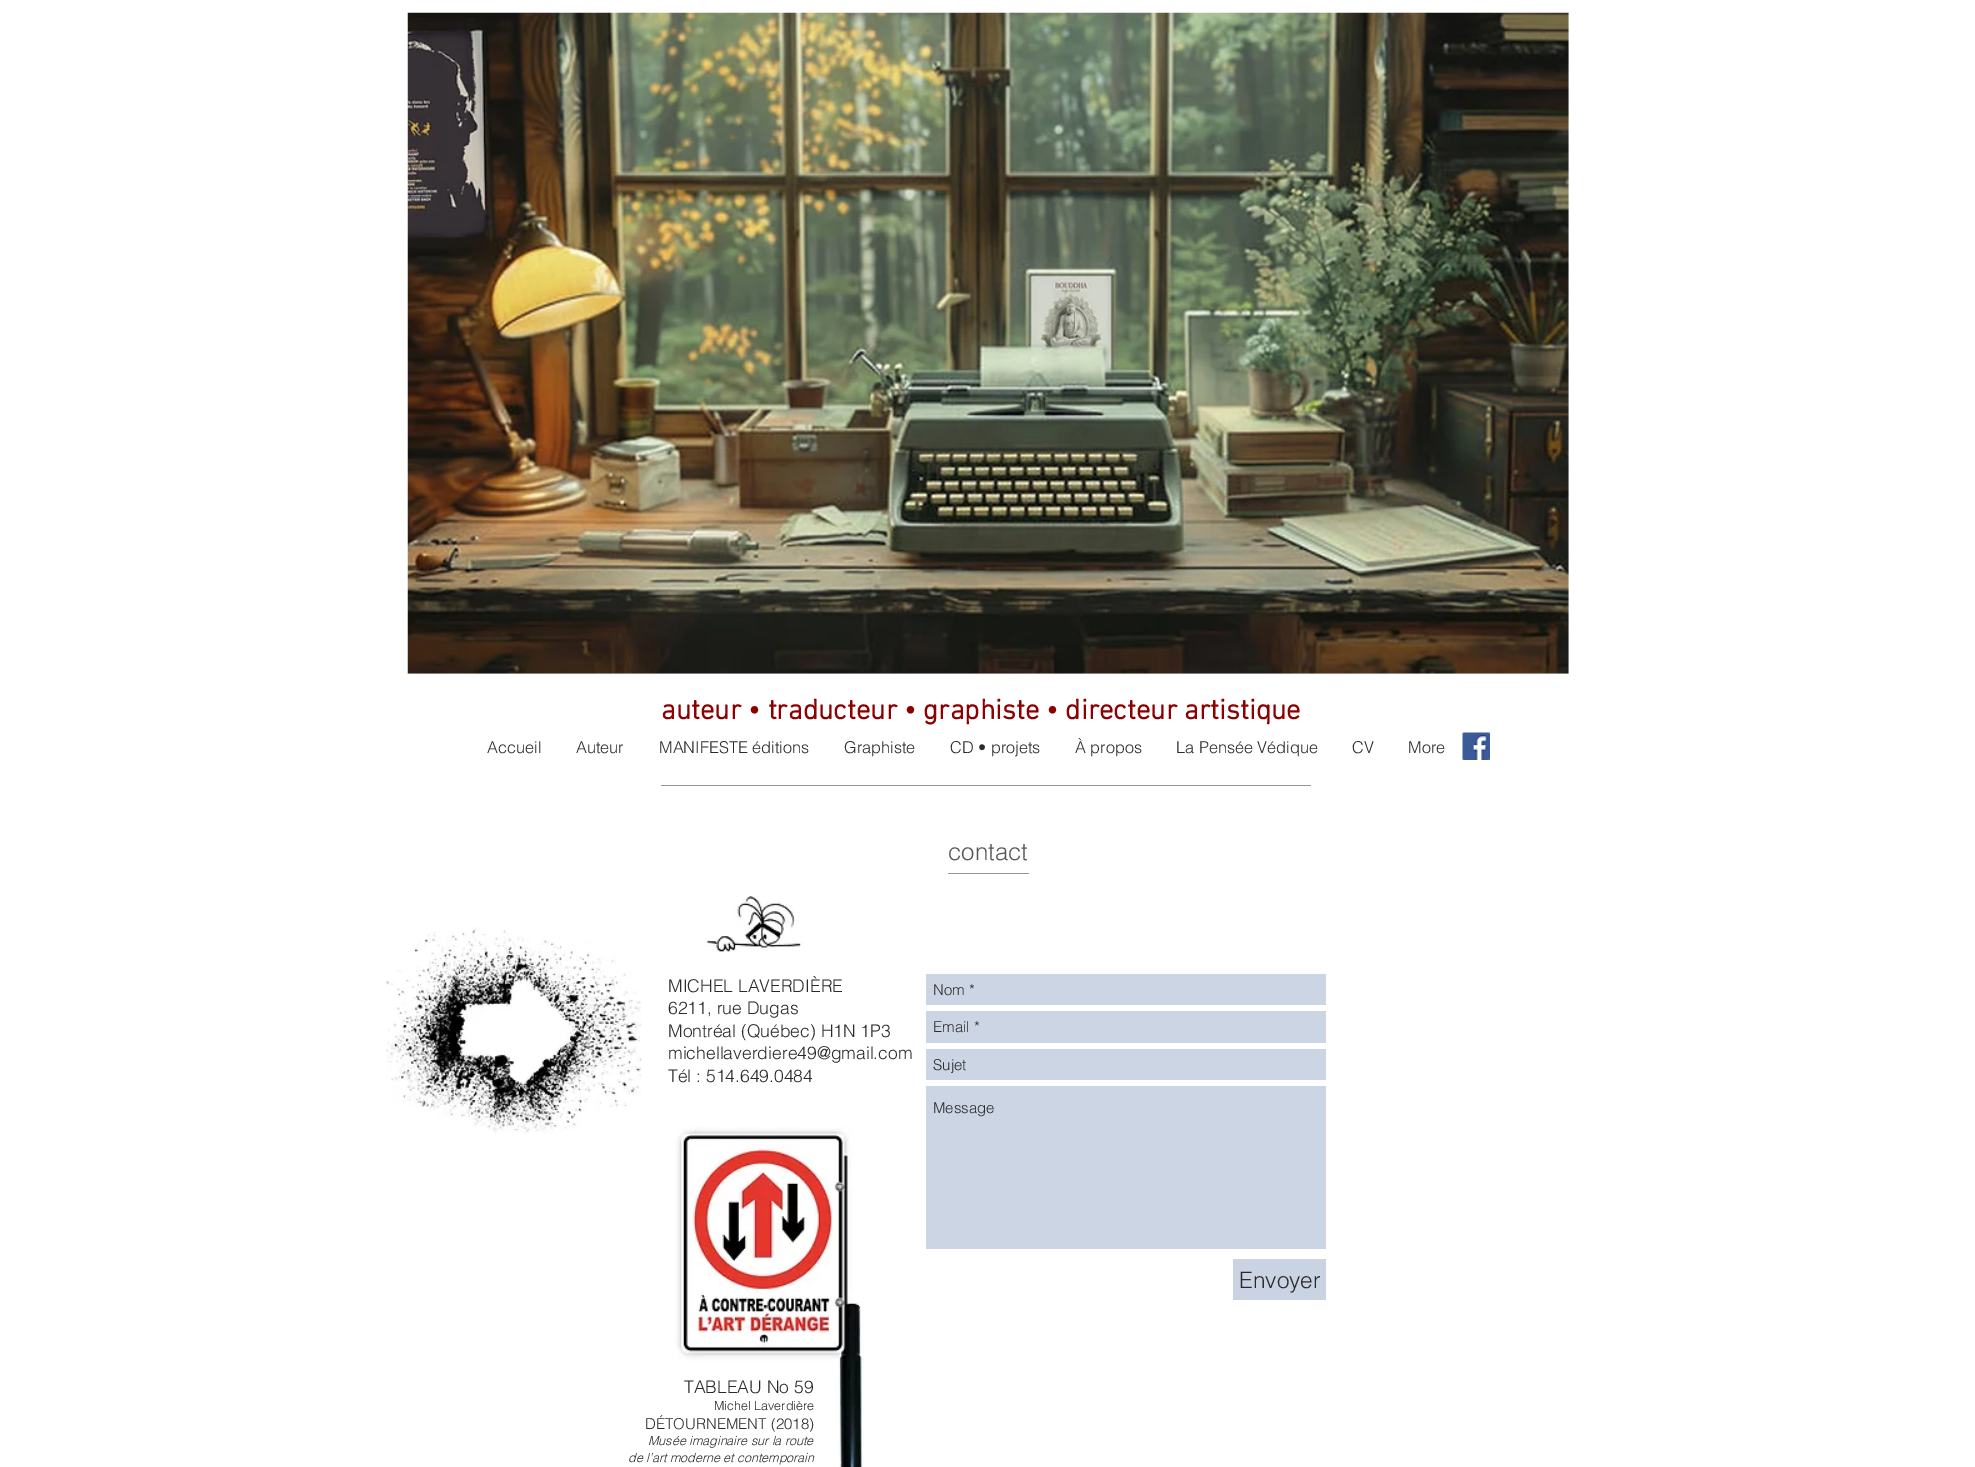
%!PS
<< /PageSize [1975 1467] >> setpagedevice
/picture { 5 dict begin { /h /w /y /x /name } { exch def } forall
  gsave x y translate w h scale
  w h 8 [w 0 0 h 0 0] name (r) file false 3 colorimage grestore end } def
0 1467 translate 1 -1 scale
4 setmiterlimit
1 setgray
0 0 1975 1467 rectfill
(img1.rgb) 407 12 1162 662 picture
/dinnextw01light-Bold [28.75 0 0 -28.75 0 0] selectfont
0.545 0 0 setrgbcolor
661 719 moveto (auteur • traducteur • graphiste • directeur artistique) show
/helvetica-Light [16.25 0 0 -16.25 0 0] selectfont
0.165 setgray
487 753 moveto (Accueil) show
576 753 moveto (Auteur) show
659 753 moveto (MANIFESTE éditions) show
844 753 moveto (Graphiste) show
950 753 moveto (CD • projets) show
1075 753 moveto (À propos) show
1176 753 moveto (La Pensée Védique) show
1352 753 moveto (CV) show
1408 753 moveto (More) show
(img2.rgb) 1462 732 28 28 picture
0.592 setgray
661 785 650 1 rectfill
/helvetica-Light [24 0 0 -24 0 0] selectfont
0.333 setgray
948 860 moveto (contact) show
0.592 setgray
948 873 81 1 rectfill
(img3.rgb) 386 927 256 207 picture
(img4.rgb) 704 896 100 56 picture
/helvetica-Light [17.5 0 0 -17.5 0 0] selectfont
0.165 setgray
668 992 moveto (MICHEL LAVERDIÈRE) show
668 1014 moveto (6211, rue Dugas) show
668 1037 moveto (Montréal \(Québec\) H1N 1P3) show
668 1059 moveto (michellaverdiere49@gmail.com) show
668 1082 moveto (Tél : 514.649.0484) show
0.8 0.835 0.894 setrgbcolor
926 974 400 31 rectfill
/helvetica-Light [15 0 0 -15 0 0] selectfont
0.165 setgray
933 995 moveto (Nom *) show
0.8 0.835 0.894 setrgbcolor
926 1011 400 32 rectfill
0.165 setgray
933 1032 moveto (Email *) show
0.8 0.835 0.894 setrgbcolor
926 1049 400 31 rectfill
0.165 setgray
933 1070 moveto (Sujet) show
0.8 0.835 0.894 setrgbcolor
926 1086 400 163 rectfill
0.165 setgray
933 1113 moveto (Message) show
0.792 0.827 0.89 setrgbcolor
1233 1259 93 41 rectfill
/helvetica-Light [22.5 0 0 -22.5 0 0] selectfont
0.165 setgray
1239 1288 moveto (Envoyer) show
(img5.rgb) 622 1106 242 361 picture
/helvetica-Light [17.5 0 0 -17.5 0 0] selectfont
684 1393 moveto (TABLEAU No 59) show
/helvetica-Light [12.5 0 0 -12.5 0 0] selectfont
714 1410 moveto (Michel Laverdière) show
/helvetica-Light [15 0 0 -15 0 0] selectfont
645 1429 moveto (DÉTOURNEMENT \(2018\)) show
/helvetica-LightItalic [12.5 0 0 -12.5 0 0] selectfont
648 1445 moveto (Musée imaginaire sur la route) show
628 1462 moveto (de l’art moderne et contemporain) show
showpage
